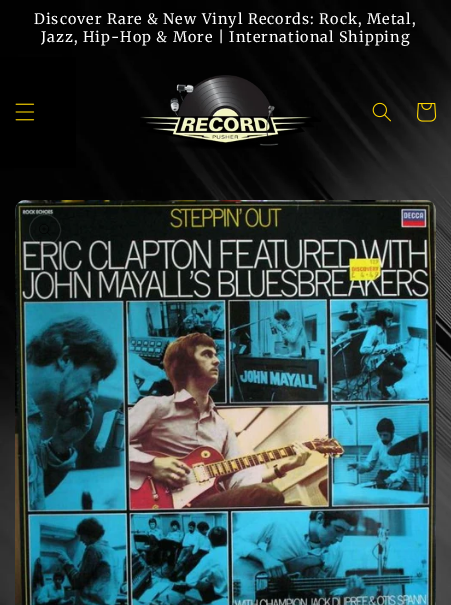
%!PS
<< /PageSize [451 605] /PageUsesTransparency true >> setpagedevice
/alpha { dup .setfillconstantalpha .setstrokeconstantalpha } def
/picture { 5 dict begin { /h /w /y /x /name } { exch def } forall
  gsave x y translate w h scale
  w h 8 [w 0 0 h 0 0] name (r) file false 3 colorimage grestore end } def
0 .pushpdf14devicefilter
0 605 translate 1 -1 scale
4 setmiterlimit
1 setgray
0 0 451 605 rectfill
(img1.rgb) 0 0 451 57 picture
/Merriweather-Regular [14.4 0 0 -14.4 0 0] selectfont
34 24 moveto 1 0 (Discover Rare & New Vinyl Records: Rock, Metal,) ashow
41 42 moveto 1 0 (Jazz, Hip-Hop & More | International Shipping) ashow
0 setgray
0 57 76 111 rectfill
(img2.rgb) 76 57 375 111 picture
(img3.rgb) 15 103 20 18 picture
(img4.rgb) 140 75 181 74 picture
(img5.rgb) 372 102 19 20 picture
(img6.rgb) 417 103 20 19 picture
(img7.rgb) 0 168 451 437 picture
(img8.rgb) 15 200 421 405 picture
0.1 alpha
1 setgray
newpath 45 230 15.5 0 360 arc closepath stroke
1 alpha
(img9.rgb) 39 224 12 12 picture
.poppdf14devicefilter showpage
